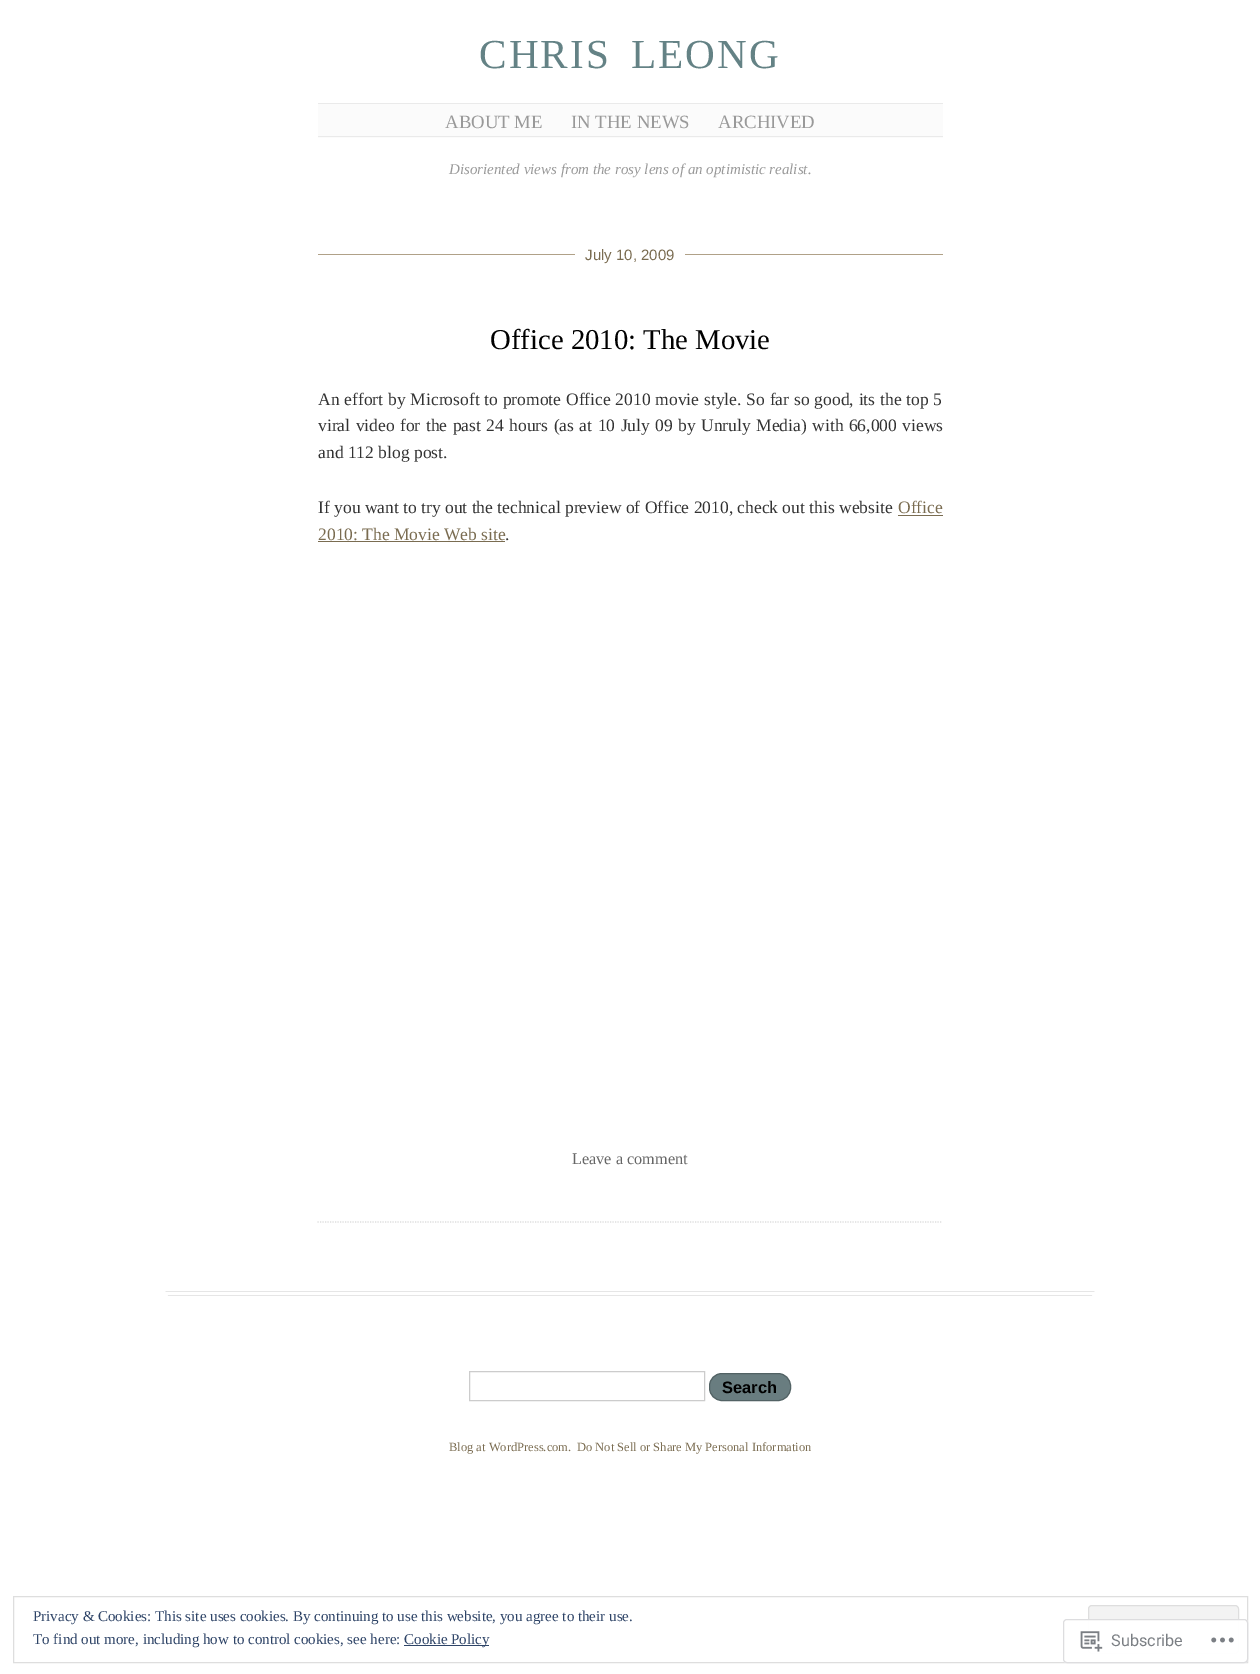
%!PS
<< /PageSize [1260 1674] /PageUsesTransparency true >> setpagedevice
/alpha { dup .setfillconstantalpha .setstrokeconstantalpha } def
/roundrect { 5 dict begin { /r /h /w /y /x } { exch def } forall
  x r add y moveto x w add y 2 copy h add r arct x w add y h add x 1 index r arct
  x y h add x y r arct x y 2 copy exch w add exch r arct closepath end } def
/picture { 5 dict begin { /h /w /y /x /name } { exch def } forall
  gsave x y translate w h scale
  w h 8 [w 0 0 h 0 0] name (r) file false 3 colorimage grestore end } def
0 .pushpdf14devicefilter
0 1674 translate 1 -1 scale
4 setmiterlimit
1 setgray
0 0 1260 1674 rectfill
/LiberationSerif-Regular [41.25 0 0 -41.25 0 0] selectfont
0.392 0.51 0.522 setrgbcolor
479 68 moveto 8 0 32 2 0 (CHRIS LEONG) awidthshow
0.984 setgray
318 104 625 34 rectfill
0.918 setgray
318 103 625 1 rectfill
318 136 625 1 rectfill
/LiberationSerif-Regular [18.75 0 0 -18.75 0 0] selectfont
0.6 setgray
445 128 moveto (ABOUT ME) show
571 128 moveto (IN THE NEWS) show
718 128 moveto (ARCHIVED) show
/LiberationSerif-Italic [15 0 0 -15 0 0] selectfont
449 174 moveto (Disoriented views from the rosy lens of an optimistic realist.) show
0.867 setgray
1.2 setlinewidth
[1.25 1.25] 0 setdash
newpath 317.5 1222 moveto 942.5 1222 lineto stroke
0.69 0.631 0.533 setrgbcolor
318 254 625 1 rectfill
1 setgray
575 254 110 1 rectfill
/LiberationSans-Regular [15 0 0 -15 0 0] selectfont
0.478 0.424 0.318 setrgbcolor
585 260 moveto (July 10, 2009) show
/LiberationSerif-Regular [28.75 0 0 -28.75 0 0] selectfont
0 setgray
490 349 moveto (Office 2010: The Movie) show
/LiberationSerif-Regular [17.5 0 0 -17.5 0 0] selectfont
0.2 setgray
318 405 moveto 0.5 0 32 (An effort by Microsoft to promote Office 2010 movie style. So far so good, its the top 5) widthshow
318 431 moveto 1.1 0 32 (viral video for the past 24 hours \(as at 10 July 09 by Unruly Media\) with 66,000 views) widthshow
318 458 moveto (and 112 blog post.) show
318 513 moveto (If you want to try out the technical preview of Office 2010, check out this website) show
0.478 0.424 0.318 setrgbcolor
898 513 moveto (Office) show
898 515 45 1 rectfill
318 540 moveto (2010: The Movie Web site) show
318 541 187 1 rectfill
0.2 setgray
505 540 moveto (.) show
/LiberationSerif-Regular [16.25 0 0 -16.25 0 0] selectfont
0.4 setgray
572 1164 moveto (Leave a comment) show
0.902 setgray
165 1291 930 1 rectfill
165 1295 930 1 rectfill
1 setgray
newpath 1095 1291 moveto 1095 1494 lineto 1092 1494 lineto 1092 1296 lineto closepath fill
newpath 165 1494 moveto 165 1291 lineto 168 1296 lineto 168 1494 lineto closepath fill
0.8 setgray
1 setlinewidth
[] 0 setdash
469.5 1371.5 235 29 rectstroke
0.412 0.49 0.502 setrgbcolor
709.5 1373.5 81 27 12.5 roundrect gsave fill grestore
0.322 0.384 0.392 setrgbcolor
stroke
/LiberationSans-Bold [16.5 0 0 -16.5 0 0] selectfont
0 setgray
722 1393 moveto (Search) show
/LiberationSerif-Regular [12.5 0 0 -12.5 0 0] selectfont
0.478 0.424 0.318 setrgbcolor
449 1451 moveto (Blog at WordPress.com.) show
577 1451 moveto (Do Not Sell or Share My Personal Information) show
0.871 setgray
13.5 1596.5 1234 66 rectstroke
/LiberationSerif-Regular [15 0 0 -15 0 0] selectfont
0.18 0.267 0.404 setrgbcolor
33 1621 moveto (Privacy & Cookies: This site uses cookies. By continuing to use this website, you agree to their use.) show
0.953 setgray
1088.5 1605.5 150 48 3.5 roundrect gsave fill grestore
0.871 setgray
stroke
0.18 0.267 0.404 setrgbcolor
33 1644 moveto (To find out more, including how to control cookies, see here:) show
404 1645 85 1 rectfill
404 1644 moveto (Cookie Policy) show
0.98 alpha
1 setgray
1063 1619 185 44 4 roundrect fill
0.863 0.863 0.871 setrgbcolor
1063.5 1619.5 184 43 3.5 roundrect stroke
1 alpha
(img1.rgb) 1080 1631 23 21 picture
/Roboto-Regular [16.25 0 0 -16.25 0 0] selectfont
0.482 0.498 0.518 setrgbcolor
1111 1646 moveto (Subscribe) show
(img2.rgb) 1211 1637 23 6 picture
.poppdf14devicefilter showpage
